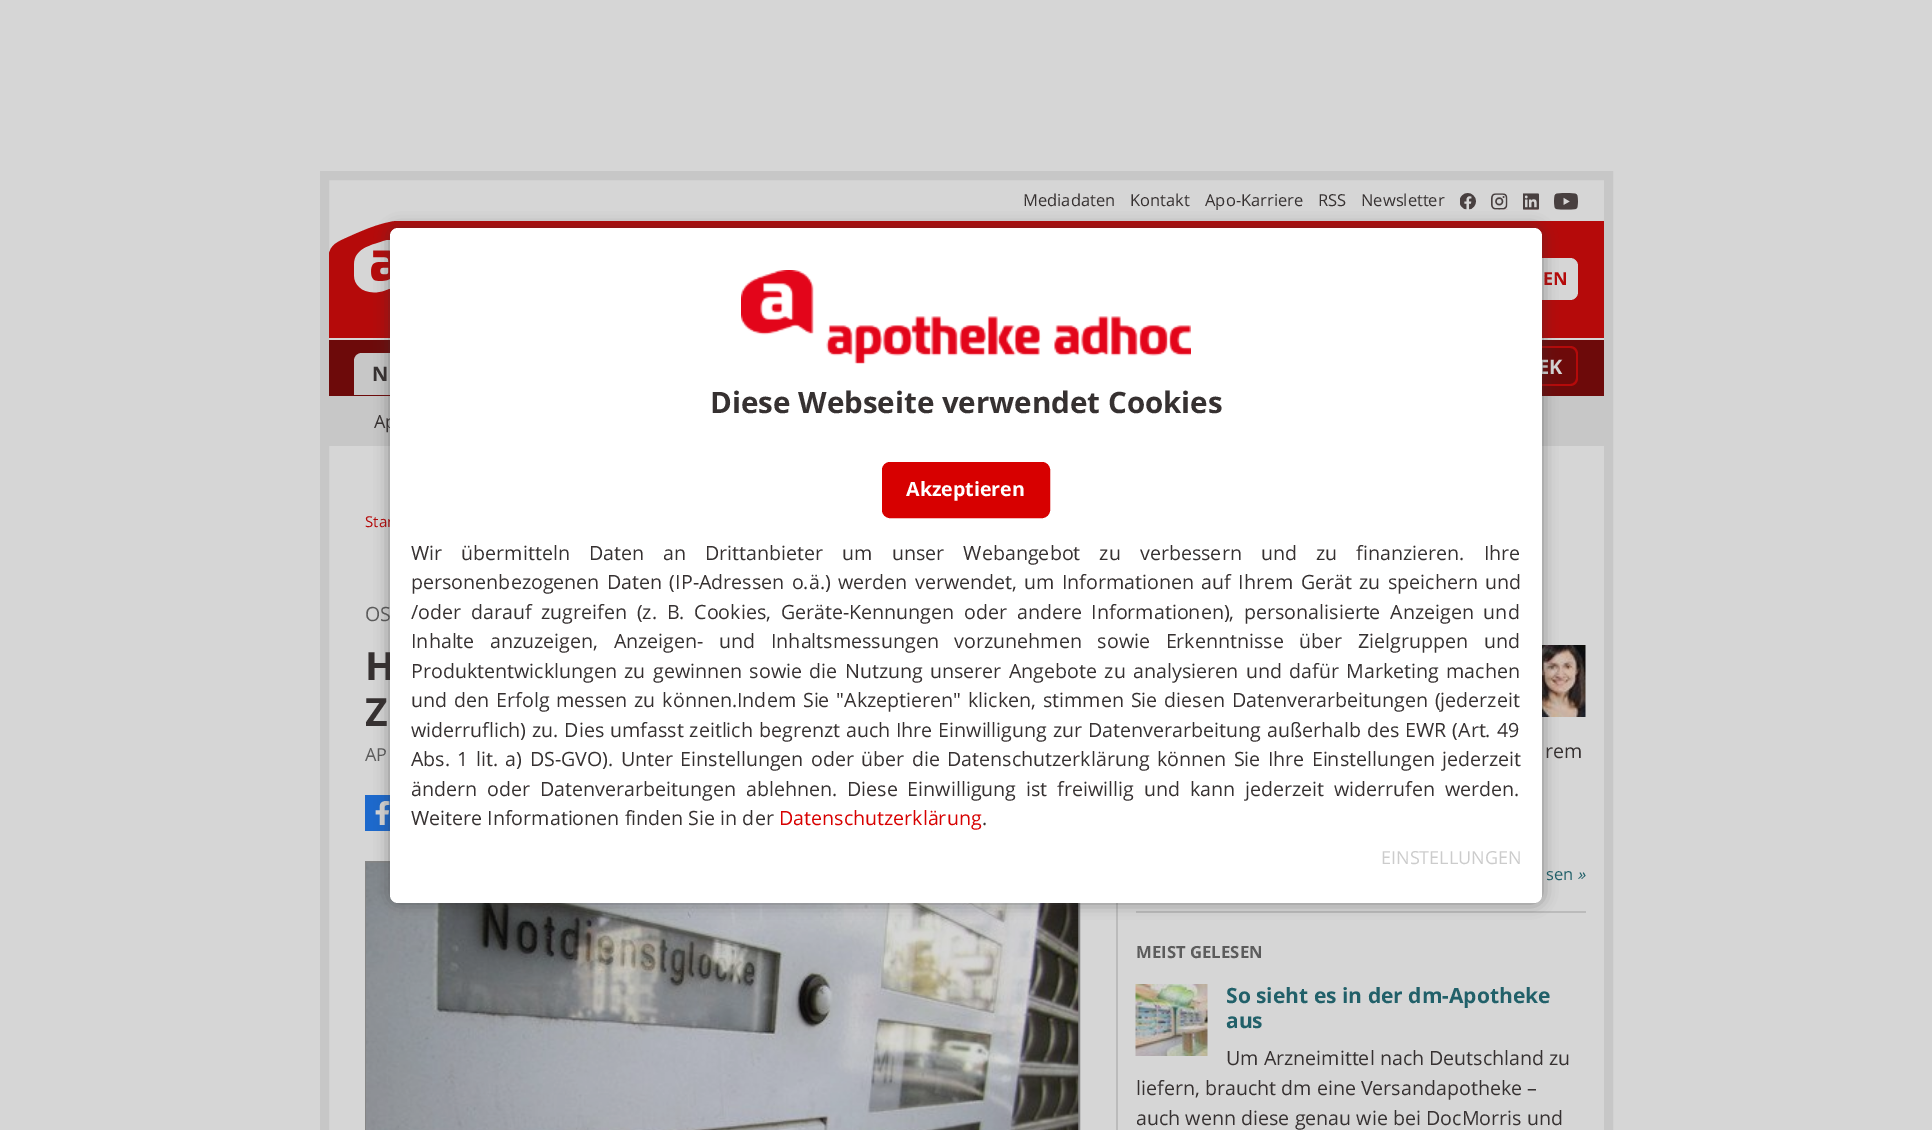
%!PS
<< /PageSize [1932 1130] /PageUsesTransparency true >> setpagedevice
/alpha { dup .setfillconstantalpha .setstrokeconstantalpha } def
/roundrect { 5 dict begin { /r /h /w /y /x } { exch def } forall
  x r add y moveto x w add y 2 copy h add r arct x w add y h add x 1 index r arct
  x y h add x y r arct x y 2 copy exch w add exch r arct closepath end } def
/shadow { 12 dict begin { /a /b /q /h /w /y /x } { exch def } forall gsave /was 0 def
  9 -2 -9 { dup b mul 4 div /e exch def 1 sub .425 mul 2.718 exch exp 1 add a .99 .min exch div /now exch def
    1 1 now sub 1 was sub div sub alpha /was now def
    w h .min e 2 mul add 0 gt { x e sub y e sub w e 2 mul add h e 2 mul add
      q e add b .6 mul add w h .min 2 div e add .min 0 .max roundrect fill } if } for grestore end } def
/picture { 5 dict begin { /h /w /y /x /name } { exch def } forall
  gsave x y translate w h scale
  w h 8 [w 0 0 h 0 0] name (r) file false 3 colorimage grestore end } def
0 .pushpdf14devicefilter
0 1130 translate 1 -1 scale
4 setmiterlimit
0.839 setgray
0 0 1932 1130 rectfill
0.78 setgray
9 setlinewidth
324.5 175.5 1284 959 rectstroke
0.71 0.039 0.039 setrgbcolor
434 221 1170 117 rectfill
/OpenSans-Regular [16.5 0 0 -16.5 0 0] selectfont
0.212 0.192 0.192 setrgbcolor
1023 206 moveto (Mediadaten) show
1130 206 moveto (Kontakt) show
1205 206 moveto (Apo-Karriere) show
1318 206 moveto (RSS) show
1361 206 moveto (Newsletter) show
(img1.rgb) 1460 193 16 17 picture
(img2.rgb) 1491 193 17 17 picture
(img3.rgb) 1523 193 16 17 picture
(img4.rgb) 1554 193 24 17 picture
gsave
329 221 105 117 rectclip
0.71 0.039 0.039 setrgbcolor
newpath 434 338 moveto 328 338 lineto 328 262 lineto 328 246 335 243 346 238 curveto 366 229 386 220 408 220 curveto 434 220 lineto closepath fill
grestore
(img5.rgb) 354 240 36 53 picture
0.839 setgray
1395 258 183 42 8 roundrect fill
/OpenSans-Bold [18 0 0 -18 0 0] selectfont
0.71 0.039 0.039 setrgbcolor
1543 285 moveto (EN) show
0.427 0.039 0.039 setrgbcolor
329 340 1275 56 rectfill
0.78 setgray
newpath 362 353 moveto 523 353 lineto 527.5 353 531 356.5 531 361 curveto 531 395 lineto 354 395 lineto 354 361 lineto 354 356.5 357.5 353 362 353 curveto closepath fill
/OpenSans-Bold [20 0 0 -20 0 0] selectfont
0.212 0.192 0.192 setrgbcolor
372 381 moveto (N) show
0.71 0.039 0.039 setrgbcolor
newpath 1448 346 moveto 1570 346 lineto 1575 346 1578 350 1578 354 curveto 1578 378 lineto 1578 382 1575 386 1570 386 curveto 1448 386 lineto closepath 1448 348 moveto 1570 348 lineto 1574 348 1576 351 1576 354 curveto 1576 378 lineto 1576 381 1574 384 1570 384 curveto 1448 384 lineto closepath eofill
0.839 setgray
1538 374 moveto (EK) show
0.78 setgray
329 396 1275 50 rectfill
/OpenSans-Regular [18 0 0 -18 0 0] selectfont
0.212 0.192 0.192 setrgbcolor
374 428 moveto (Ap) show
/OpenSans-Regular [15 0 0 -15 0 0] selectfont
0.71 0.039 0.039 setrgbcolor
365 527 moveto (Star) show
0.733 setgray
1116 903 2 227 rectfill
/OpenSans-Regular [19.65 0 0 -19.65 0 0] selectfont
0.361 setgray
365 621 moveto (OS) show
/OpenSans-Bold [39 0 0 -39 0 0] selectfont
0.212 0.192 0.192 setrgbcolor
365 680 moveto (H) show
365 726 moveto (Z) show
/OpenSans-Regular [18 0 0 -18 0 0] selectfont
0.361 setgray
365 761 moveto (AP) show
(img6.rgb) 365 795 25 36 picture
0.522 setgray
2 setlinewidth
366 862 713 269 rectstroke
(img7.rgb) 366 862 713 268 picture
0.733 setgray
1136 911 450 2 rectfill
(img8.rgb) 1542 645 44 72 picture
/OpenSans-Regular [19.65 0 0 -19.65 0 0] selectfont
0.212 0.192 0.192 setrgbcolor
1545 758 moveto (rem) show
/OpenSans-Regular [16.5 0 0 -16.5 0 0] selectfont
0.129 0.376 0.412 setrgbcolor
1546 880 moveto (sen) show
/OpenSans-Italic [16.5 0 0 -16.5 0 0] selectfont
1577 880 moveto (») show
/OpenSans-Bold [16.75 0 0 -16.75 0 0] selectfont
0.361 setgray
1136 958 moveto (MEIST GELESEN) show
(img9.rgb) 1135 984 73 72 picture
/OpenSans-Bold [21 0 0 -21 0 0] selectfont
0.129 0.376 0.412 setrgbcolor
1226 1003 moveto (So sieht es in der dm-Apotheke) show
1226 1028 moveto (aus) show
/OpenSans-Regular [19.65 0 0 -19.65 0 0] selectfont
0.212 0.192 0.192 setrgbcolor
1226 1065 moveto (Um Arzneimittel nach Deutschland zu) show
1136 1095 moveto (liefern, braucht dm eine Versandapotheke –) show
1136 1125 moveto (auch wenn diese genau wie bei DocMorris und) show
0.2 setgray
390 228 1152 675 8 7.5 0.5 shadow
1 setgray
390 228 1152 675 8 roundrect fill
(img10.rgb) 741 270 450 94 picture
/OpenSans-Bold [29.5 0 0 -29.5 0 0] selectfont
0.212 0.192 0.192 setrgbcolor
710 413 moveto (Diese Webseite verwendet Cookies) show
0.843 0 0 setrgbcolor
883.5 463.5 165 53 6.5 roundrect gsave fill grestore
3 setlinewidth
stroke
/OpenSans-Bold [19.65 0 0 -19.65 0 0] selectfont
1 setgray
906 496 moveto (Akzeptieren) show
/OpenSans-Regular [19.65 0 0 -19.65 0 0] selectfont
0.212 0.192 0.192 setrgbcolor
411 560 moveto 14 0 32 (Wir übermitteln Daten an Drittanbieter um unser Webangebot zu verbessern und zu finanzieren. Ihre) widthshow
411 589 moveto 2.25 0 32 (personenbezogenen Daten \(IP-Adressen o.ä.\) werden verwendet, um Informationen auf Ihrem Gerät zu speichern und) widthshow
411 619 moveto 4.6 0 32 (/oder darauf zugreifen \(z. B. Cookies, Geräte-Kennungen oder andere Informationen\), personalisierte Anzeigen und) widthshow
411 648 moveto 10.5 0 32 (Inhalte anzuzeigen, Anzeigen- und Inhaltsmessungen vorzunehmen sowie Erkenntnisse über Zielgruppen und) widthshow
411 678 moveto 2.25 0 32 (Produktentwicklungen zu gewinnen sowie die Nutzung unserer Angebote zu analysieren und dafür Marketing machen) widthshow
411 707 moveto 1.8 0 32 (und den Erfolg messen zu können.Indem Sie "Akzeptieren" klicken, stimmen Sie diesen Datenverarbeitungen \(jederzeit) widthshow
411 737 moveto 0.75 0 32 (widerruflich\) zu. Dies umfasst zeitlich begrenzt auch Ihre Einwilligung zur Datenverarbeitung außerhalb des EWR \(Art. 49) widthshow
411 766 moveto 2.25 0 32 (Abs. 1 lit. a\) DS-GVO\). Unter Einstellungen oder über die Datenschutzerklärung können Sie Ihre Einstellungen jederzeit) widthshow
411 796 moveto 4.75 0 32 (ändern oder Datenverarbeitungen ablehnen. Diese Einwilligung ist freiwillig und kann jederzeit widerrufen werden.) widthshow
411 825 moveto (Weitere Informationen finden Sie in der) show
0.843 0 0 setrgbcolor
779 825 moveto (Datenschutzerklärung) show
0.212 0.192 0.192 setrgbcolor
982 825 moveto (.) show
/OpenSans-Regular [18 0 0 -18 0 0] selectfont
0.8 setgray
1381 864 moveto (EINSTELLUNGEN) show
.poppdf14devicefilter showpage
